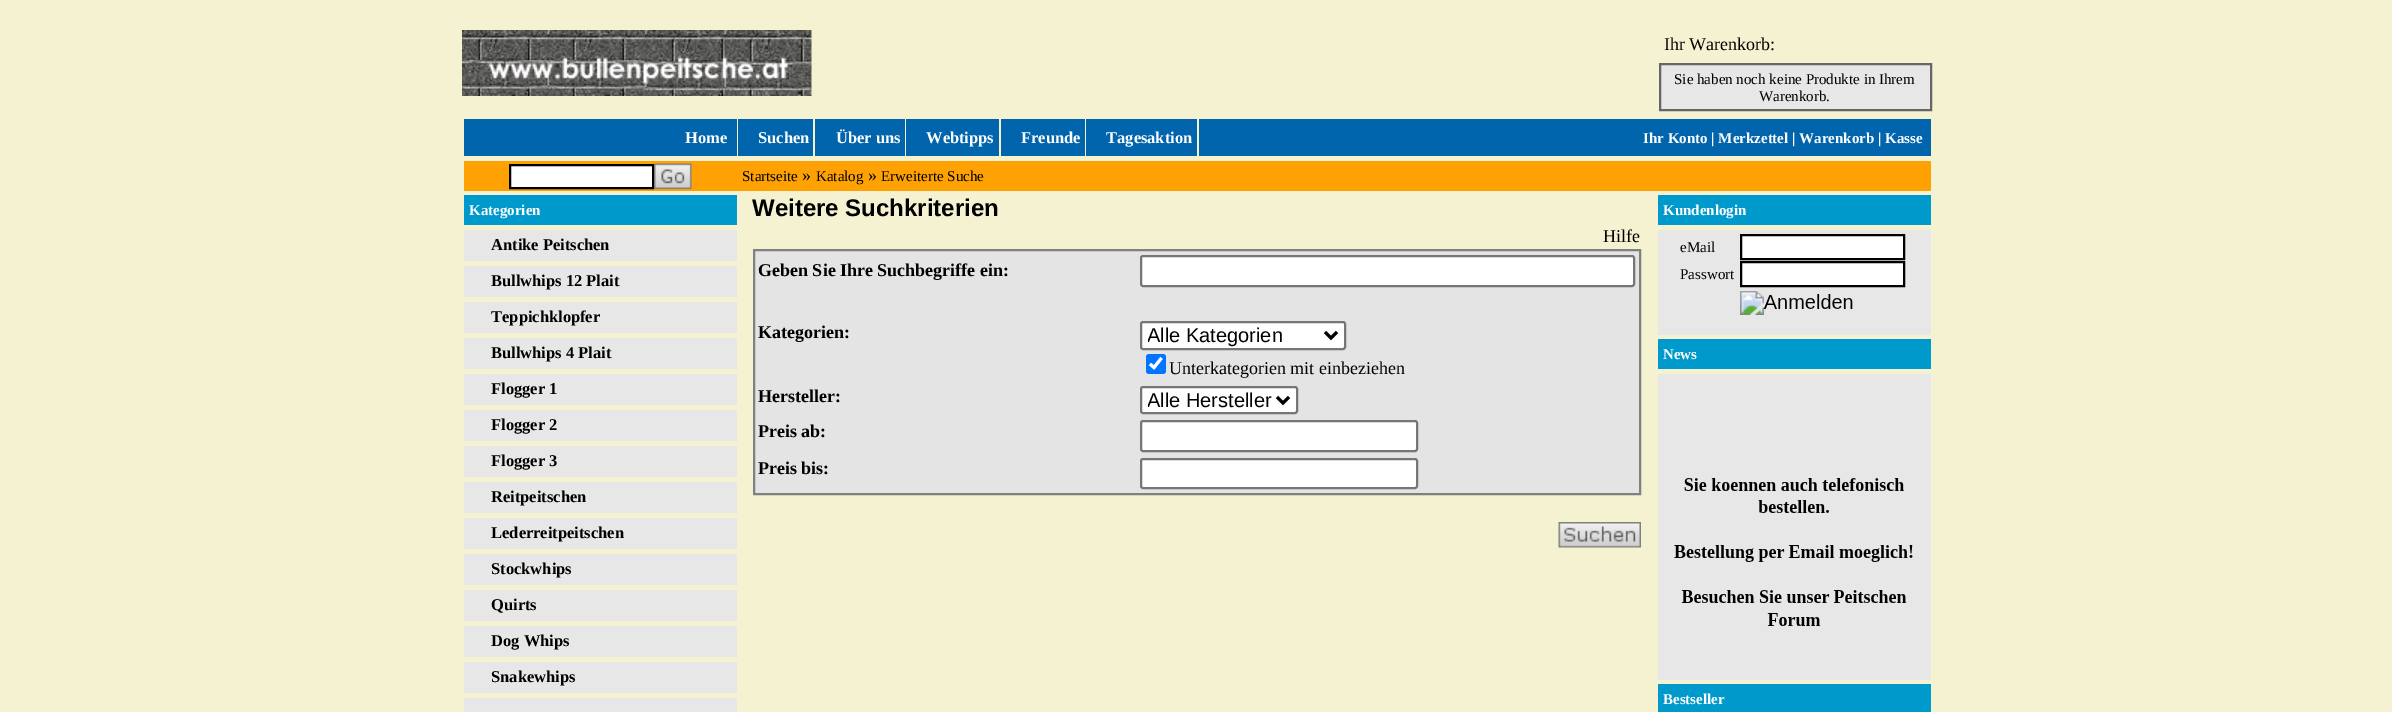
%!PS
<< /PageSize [2392 712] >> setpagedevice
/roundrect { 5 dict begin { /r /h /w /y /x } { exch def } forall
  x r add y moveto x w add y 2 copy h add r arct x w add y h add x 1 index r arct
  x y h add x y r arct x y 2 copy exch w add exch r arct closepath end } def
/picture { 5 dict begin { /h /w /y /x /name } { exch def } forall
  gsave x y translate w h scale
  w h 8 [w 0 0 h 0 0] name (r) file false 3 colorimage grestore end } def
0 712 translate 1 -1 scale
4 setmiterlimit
0.961 0.949 0.824 setrgbcolor
0 0 2392 712 rectfill
(img1.rgb) 462 30 350 66 picture
/LiberationSerif-Regular [18 0 0 -18 0 0] selectfont
0 setgray
1664 50 moveto (Ihr Warenkorb:) show
0.906 setgray
newpath 1660 64 moveto 1931 64 lineto 1931 110 lineto 1660 110 lineto closepath gsave fill grestore
0.4 setgray
2 setlinewidth
stroke
/LiberationSerif-Regular [15 0 0 -15 0 0] selectfont
0 setgray
1674 84 moveto (Sie haben noch keine Produkte in Ihrem) show
1759 101 moveto (Warenkorb.) show
0 0.396 0.678 setrgbcolor
464 119 273 37 rectfill
/LiberationSerif-Bold [16.5 0 0 -16.5 0 0] selectfont
1 setgray
685 143 moveto (Home) show
0 0.396 0.678 setrgbcolor
738 119 75 37 rectfill
1 setgray
758 143 moveto (Suchen) show
0 0.396 0.678 setrgbcolor
815 119 90 37 rectfill
1 setgray
836 143 moveto (Über uns) show
0 0.396 0.678 setrgbcolor
906 119 93 37 rectfill
1 setgray
926 143 moveto (Webtipps) show
0 0.396 0.678 setrgbcolor
1001 119 84 37 rectfill
1 setgray
1021 143 moveto (Freunde) show
0 0.396 0.678 setrgbcolor
1086 119 111 37 rectfill
1 setgray
1106 143 moveto (Tagesaktion) show
0 0.396 0.678 setrgbcolor
1199 119 732 37 rectfill
/LiberationSerif-Bold [15 0 0 -15 0 0] selectfont
1 setgray
1643 143 moveto (Ihr Konto | Merkzettel | Warenkorb | Kasse) show
1 0.631 0.012 setrgbcolor
464 161 1467 30 rectfill
1 setgray
newpath 510 165 moveto 653 165 lineto 653 188 lineto 510 188 lineto closepath gsave fill grestore
0 setgray
stroke
(img2.rgb) 654 163 38 26 picture
/LiberationSerif-Regular [15 0 0 -15 0 0] selectfont
742 181 moveto (Startseite) show
/LiberationSerif-Regular [18 0 0 -18 0 0] selectfont
802 181 moveto (») show
/LiberationSerif-Regular [15 0 0 -15 0 0] selectfont
816 181 moveto (Katalog) show
/LiberationSerif-Regular [18 0 0 -18 0 0] selectfont
868 181 moveto (») show
/LiberationSerif-Regular [15 0 0 -15 0 0] selectfont
881 181 moveto (Erweiterte Suche) show
0 0.6 0.8 setrgbcolor
464 195 273 30 rectfill
/LiberationSerif-Bold [15 0 0 -15 0 0] selectfont
1 setgray
469 215 moveto (Kategorien) show
0.906 setgray
464 230 273 31 rectfill
/LiberationSerif-Bold [16.5 0 0 -16.5 0 0] selectfont
0 setgray
491 250 moveto (Antike Peitschen) show
0.906 setgray
464 266 273 31 rectfill
0 setgray
491 286 moveto (Bullwhips 12 Plait) show
0.906 setgray
464 302 273 31 rectfill
0 setgray
491 322 moveto (Teppichklopfer) show
0.906 setgray
464 338 273 31 rectfill
0 setgray
491 358 moveto (Bullwhips 4 Plait) show
0.906 setgray
464 374 273 31 rectfill
0 setgray
491 394 moveto (Flogger 1) show
0.906 setgray
464 410 273 31 rectfill
0 setgray
491 430 moveto (Flogger 2) show
0.906 setgray
464 446 273 31 rectfill
0 setgray
491 466 moveto (Flogger 3) show
0.906 setgray
464 482 273 31 rectfill
0 setgray
491 502 moveto (Reitpeitschen) show
0.906 setgray
464 518 273 31 rectfill
0 setgray
491 538 moveto (Lederreitpeitschen) show
0.906 setgray
464 554 273 31 rectfill
0 setgray
491 574 moveto (Stockwhips) show
0.906 setgray
464 590 273 31 rectfill
0 setgray
491 610 moveto (Quirts) show
0.906 setgray
464 626 273 31 rectfill
0 setgray
491 646 moveto (Dog Whips) show
0.906 setgray
464 662 273 31 rectfill
0 setgray
491 682 moveto (Snakewhips) show
0.906 setgray
464 698 273 14 rectfill
/LiberationSans-Bold [24 0 0 -24 0 0] selectfont
0 setgray
752 216 moveto (Weitere Suchkriterien) show
/LiberationSerif-Regular [18 0 0 -18 0 0] selectfont
1603 242 moveto (Hilfe) show
0.894 setgray
newpath 754 250 moveto 1640 250 lineto 1640 494 lineto 754 494 lineto closepath gsave fill grestore
0.502 setgray
stroke
/LiberationSerif-Bold [18 0 0 -18 0 0] selectfont
0 setgray
758 276 moveto (Geben Sie Ihre Suchbegriffe ein:) show
1 setgray
1141 256 493 30 2 roundrect gsave fill grestore
0.463 setgray
stroke
0 setgray
758 338 moveto (Kategorien:) show
1 setgray
1141 322 204 27 2 roundrect gsave fill grestore
0.463 setgray
stroke
0 setgray
3 setlinewidth
newpath 1325 332 moveto 1331 338 lineto 1337 332 lineto stroke
gsave
1148 323 172 25 rectclip
/LiberationSans-Regular [20 0 0 -20 0 0] selectfont
1147 342 moveto (Alle Kategorien) show
grestore
0 0.459 1 setrgbcolor
1146 354 20 20 3 roundrect fill
1 setgray
3.1 setlinewidth
newpath 1150 364 moveto 1154 367.5 lineto 1161.5 358 lineto stroke
/LiberationSerif-Regular [18 0 0 -18 0 0] selectfont
0 setgray
1169 374 moveto (Unterkategorien mit einbeziehen) show
/LiberationSerif-Bold [18 0 0 -18 0 0] selectfont
758 402 moveto (Hersteller:) show
1 setgray
1141 387 156 26 2 roundrect gsave fill grestore
0.463 setgray
2 setlinewidth
stroke
0 setgray
3 setlinewidth
newpath 1277 397 moveto 1283 403 lineto 1289 397 lineto stroke
gsave
1148 387 124 26 rectclip
/LiberationSans-Regular [20 0 0 -20 0 0] selectfont
1147 407 moveto (Alle Hersteller) show
grestore
758 437 moveto (Preis ab:) show
1 setgray
1141 421 276 30 2 roundrect gsave fill grestore
0.463 setgray
2 setlinewidth
stroke
0 setgray
758 474 moveto (Preis bis:) show
1 setgray
1141 459 276 29 2 roundrect gsave fill grestore
0.463 setgray
stroke
(img3.rgb) 1558 522 83 26 picture
0 0.6 0.8 setrgbcolor
1658 195 273 30 rectfill
/LiberationSerif-Bold [15 0 0 -15 0 0] selectfont
1 setgray
1663 215 moveto (Kundenlogin) show
0.906 setgray
1658 230 273 105 rectfill
/LiberationSerif-Regular [15 0 0 -15 0 0] selectfont
0 setgray
1680 252 moveto (eMail) show
1 setgray
newpath 1741 235 moveto 1904 235 lineto 1904 259 lineto 1741 259 lineto closepath gsave fill grestore
0 setgray
stroke
1680 279 moveto (Passwort) show
1 setgray
newpath 1741 262 moveto 1904 262 lineto 1904 286 lineto 1741 286 lineto closepath gsave fill grestore
0 setgray
stroke
(img4.rgb) 1740 291 113 24 picture
0 0.6 0.8 setrgbcolor
1658 339 273 30 rectfill
/LiberationSerif-Bold [15 0 0 -15 0 0] selectfont
1 setgray
1663 359 moveto (News) show
0.906 setgray
1658 374 273 306 rectfill
(img5.rgb) 1674 478 239 148 picture
0 0.6 0.8 setrgbcolor
1658 684 273 28 rectfill
1 setgray
1663 704 moveto (Bestseller) show
showpage
